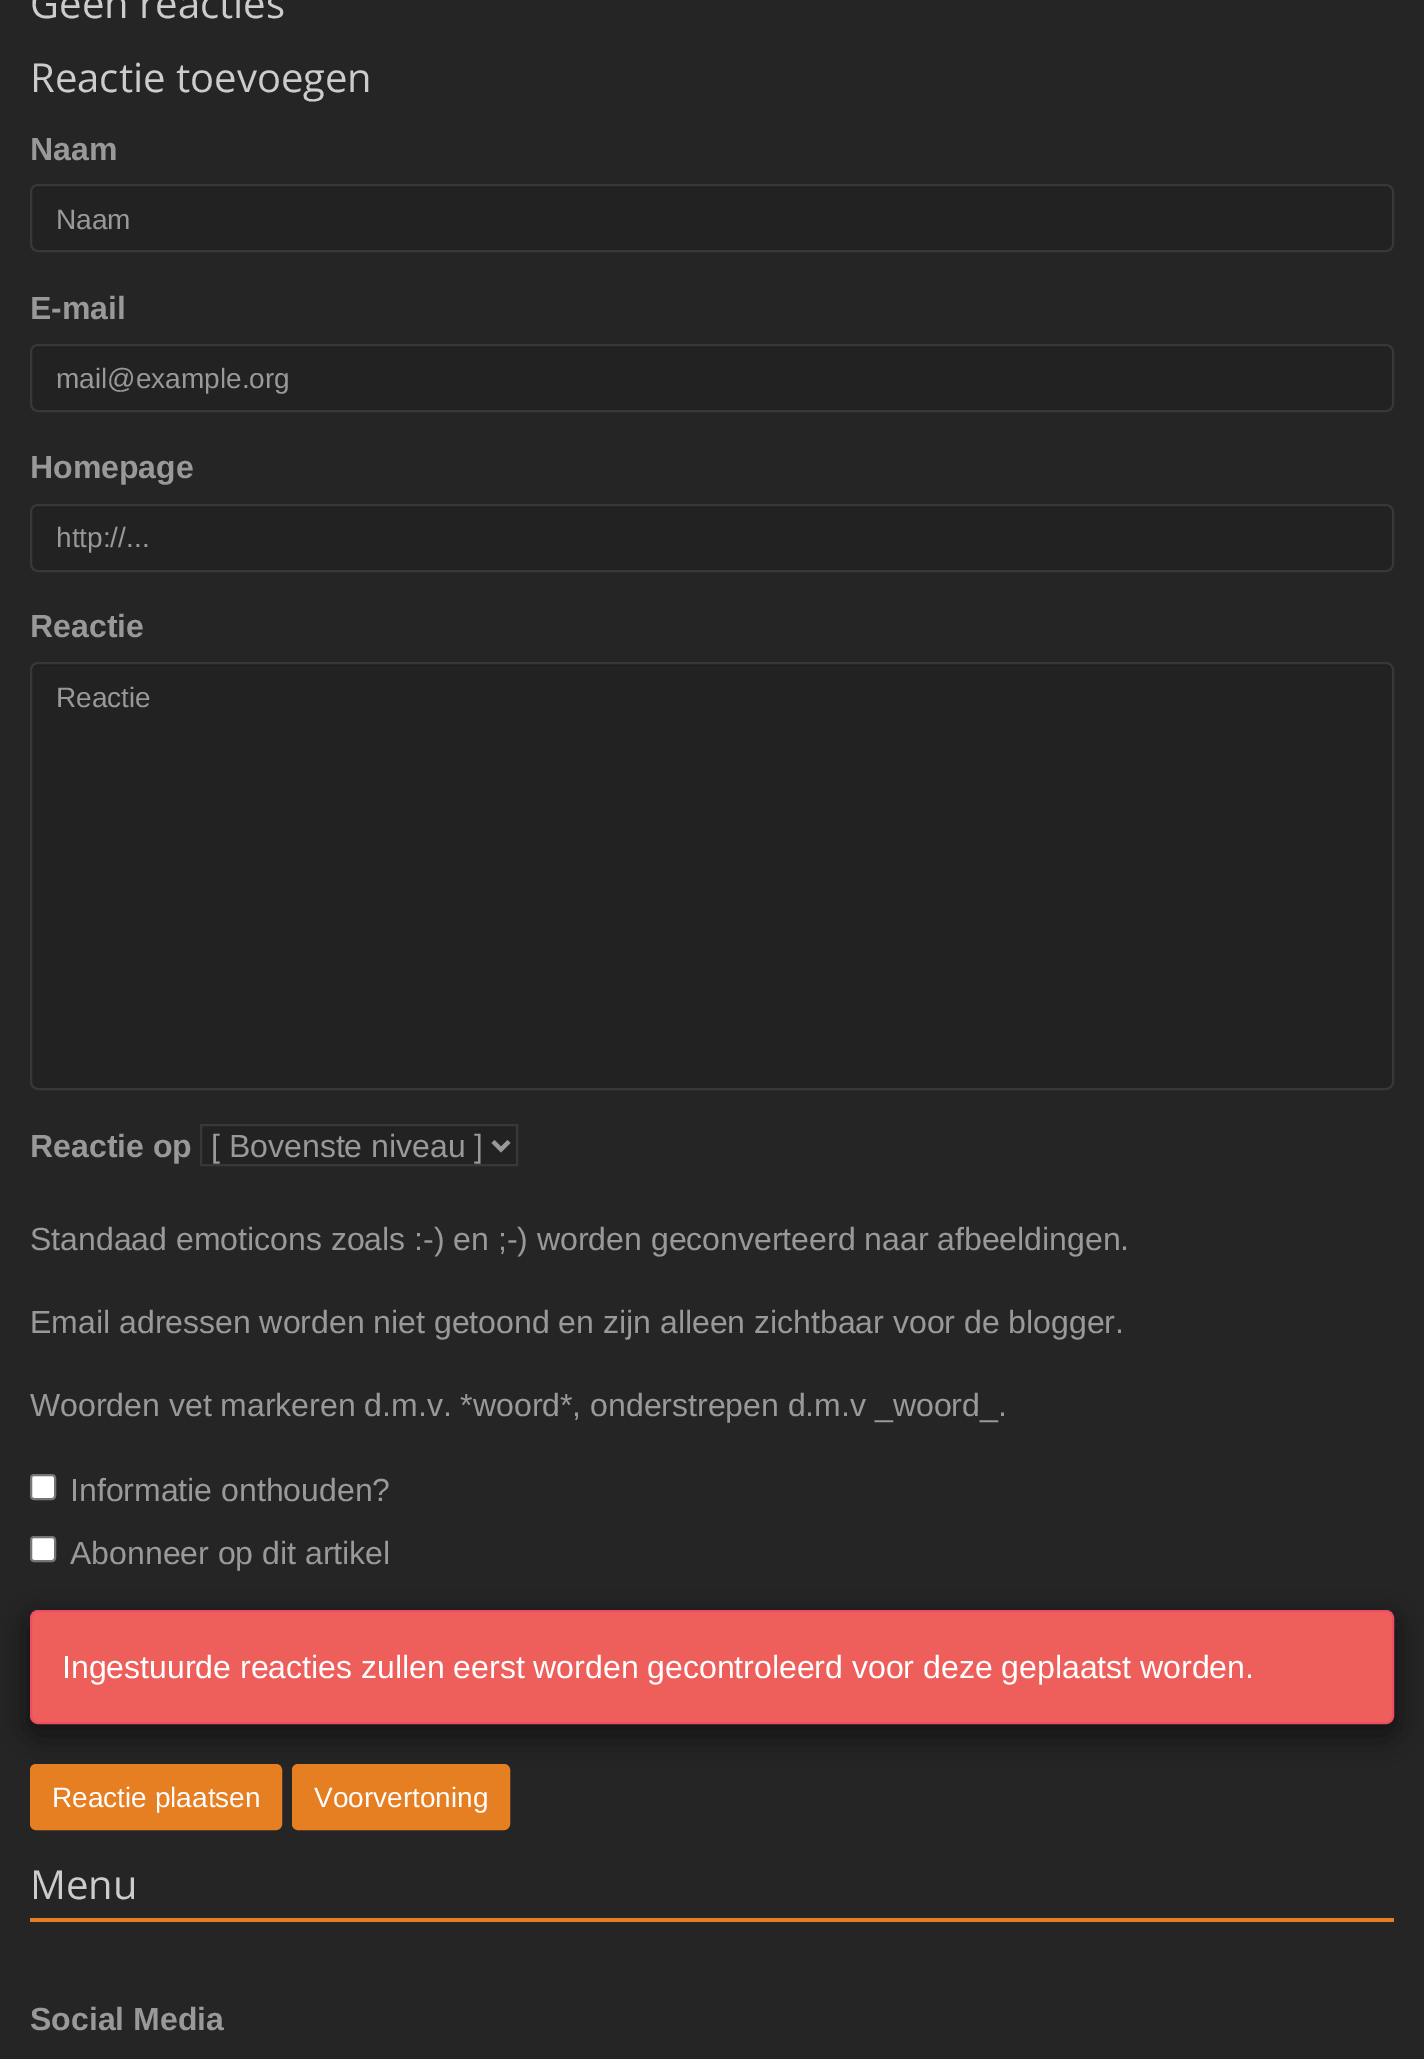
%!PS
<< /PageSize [1424 2059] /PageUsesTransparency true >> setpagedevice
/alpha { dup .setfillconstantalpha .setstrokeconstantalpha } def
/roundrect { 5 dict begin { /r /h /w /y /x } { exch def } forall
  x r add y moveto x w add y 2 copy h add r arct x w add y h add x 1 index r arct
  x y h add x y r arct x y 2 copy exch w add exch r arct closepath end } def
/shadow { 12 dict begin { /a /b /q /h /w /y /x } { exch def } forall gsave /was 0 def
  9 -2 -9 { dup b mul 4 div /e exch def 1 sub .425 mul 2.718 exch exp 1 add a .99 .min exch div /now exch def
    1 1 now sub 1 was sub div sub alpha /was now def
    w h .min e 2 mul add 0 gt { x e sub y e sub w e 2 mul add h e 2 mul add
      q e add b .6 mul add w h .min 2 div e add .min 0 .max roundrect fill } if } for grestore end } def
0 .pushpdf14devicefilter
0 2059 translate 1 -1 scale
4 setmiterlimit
0.145 setgray
0 0 1424 2059 rectfill
/OpenSans-Regular [40 0 0 -40 0 0] selectfont
0.8 setgray
30 18 moveto (Geen reacties) show
30 92 moveto (Reactie toevoegen) show
/LiberationSans-Bold [32 0 0 -32 0 0] selectfont
0.6 setgray
30 160 moveto (Naam) show
0.133 setgray
30 184 1364 68 8 roundrect fill
0.122 setgray
newpath 38 188 moveto 1386 188 lineto 1389 188 1392 191 1392 194 curveto 1392 192 lineto 1392 189 1389 186 1386 186 curveto 38 186 lineto 35 186 32 189 32 192 curveto 32 194 lineto 32 191 35 188 38 188 curveto closepath fill
0.22 setgray
2 setlinewidth
31 185 1362 66 7 roundrect stroke
/LiberationSans-Regular [28 0 0 -28 0 0] selectfont
0.6 setgray
56 229 moveto (Naam) show
/LiberationSans-Bold [32 0 0 -32 0 0] selectfont
30 319 moveto (E-mail) show
0.133 setgray
30 344 1364 68 8 roundrect fill
0.122 setgray
newpath 38 348 moveto 1386 348 lineto 1389 348 1392 351 1392 354 curveto 1392 352 lineto 1392 349 1389 346 1386 346 curveto 38 346 lineto 35 346 32 349 32 352 curveto 32 354 lineto 32 351 35 348 38 348 curveto closepath fill
0.22 setgray
31 345 1362 66 7 roundrect stroke
/LiberationSans-Regular [28 0 0 -28 0 0] selectfont
0.6 setgray
56 388 moveto (mail@example.org) show
/LiberationSans-Bold [32 0 0 -32 0 0] selectfont
30 478 moveto (Homepage) show
0.133 setgray
30 504 1364 68 8 roundrect fill
0.122 setgray
newpath 38 508 moveto 1386 508 lineto 1389 508 1392 511 1392 514 curveto 1392 512 lineto 1392 509 1389 506 1386 506 curveto 38 506 lineto 35 506 32 509 32 512 curveto 32 514 lineto 32 511 35 508 38 508 curveto closepath fill
0.22 setgray
31 505 1362 66 7 roundrect stroke
/LiberationSans-Regular [28 0 0 -28 0 0] selectfont
0.6 setgray
56 547 moveto (http://...) show
/LiberationSans-Bold [32 0 0 -32 0 0] selectfont
30 637 moveto (Reactie) show
0.133 setgray
30 662 1364 428 8 roundrect fill
0.122 setgray
newpath 38 666 moveto 1386 666 lineto 1389 666 1392 669 1392 672 curveto 1392 670 lineto 1392 667 1389 664 1386 664 curveto 38 664 lineto 35 664 32 667 32 670 curveto 32 672 lineto 32 669 35 666 38 666 curveto closepath fill
0.22 setgray
31 663 1362 426 7 roundrect stroke
/LiberationSans-Regular [28 0 0 -28 0 0] selectfont
0.6 setgray
56 707 moveto (Reactie) show
/LiberationSans-Bold [32 0 0 -32 0 0] selectfont
30 1157 moveto (Reactie op) show
0.133 setgray
newpath 201 1125 moveto 517 1125 lineto 517 1165 lineto 201 1165 lineto closepath gsave fill grestore
0.22 setgray
stroke
0.6 setgray
4 setlinewidth
newpath 493 1141.5 moveto 501 1149.5 lineto 509 1141.5 lineto stroke
/LiberationSans-Regular [32 0 0 -32 0 0] selectfont
211 1157 moveto ([ Bovenste niveau ]) show
30 1250 moveto (Standaad emoticons zoals :-\) en ;-\) worden geconverteerd naar afbeeldingen.) show
30 1333 moveto (Email adressen worden niet getoond en zijn alleen zichtbaar voor de blogger.) show
30 1416 moveto (Woorden vet markeren d.m.v. *woord*, onderstrepen d.m.v _woord_.) show
1 setgray
31 1475 24 24 3 roundrect gsave fill grestore
0.463 setgray
2 setlinewidth
stroke
0.6 setgray
70 1501 moveto (Informatie onthouden?) show
1 setgray
31 1537 24 24 3 roundrect gsave fill grestore
0.463 setgray
stroke
0.6 setgray
70 1564 moveto (Abonneer op dit artikel) show
0 setgray
30 1620 1364 114 8 15 0.5 shadow
0.933 0.373 0.357 setrgbcolor
31 1611 1362 112 7 roundrect gsave fill grestore
0.929 0.302 0.388 setrgbcolor
stroke
1 setgray
62 1678 moveto (Ingestuurde reacties zullen eerst worden gecontroleerd voor deze geplaatst worden.) show
0.902 0.494 0.133 setrgbcolor
31 1765 250 64 5 roundrect gsave fill grestore
stroke
/LiberationSans-Regular [28 0 0 -28 0 0] selectfont
1 setgray
52 1807 moveto (Reactie plaatsen) show
0.902 0.494 0.133 setrgbcolor
293 1765 216 64 5 roundrect gsave fill grestore
stroke
1 setgray
314 1807 moveto (Voorvertoning) show
0.902 0.494 0.133 setrgbcolor
30 1918 1364 4 rectfill
/OpenSans-Regular [40 0 0 -40 0 0] selectfont
0.8 setgray
30 1899 moveto (Menu) show
/LiberationSans-Bold [32 0 0 -32 0 0] selectfont
0.6 setgray
30 2030 moveto (Social Media) show
.poppdf14devicefilter showpage
